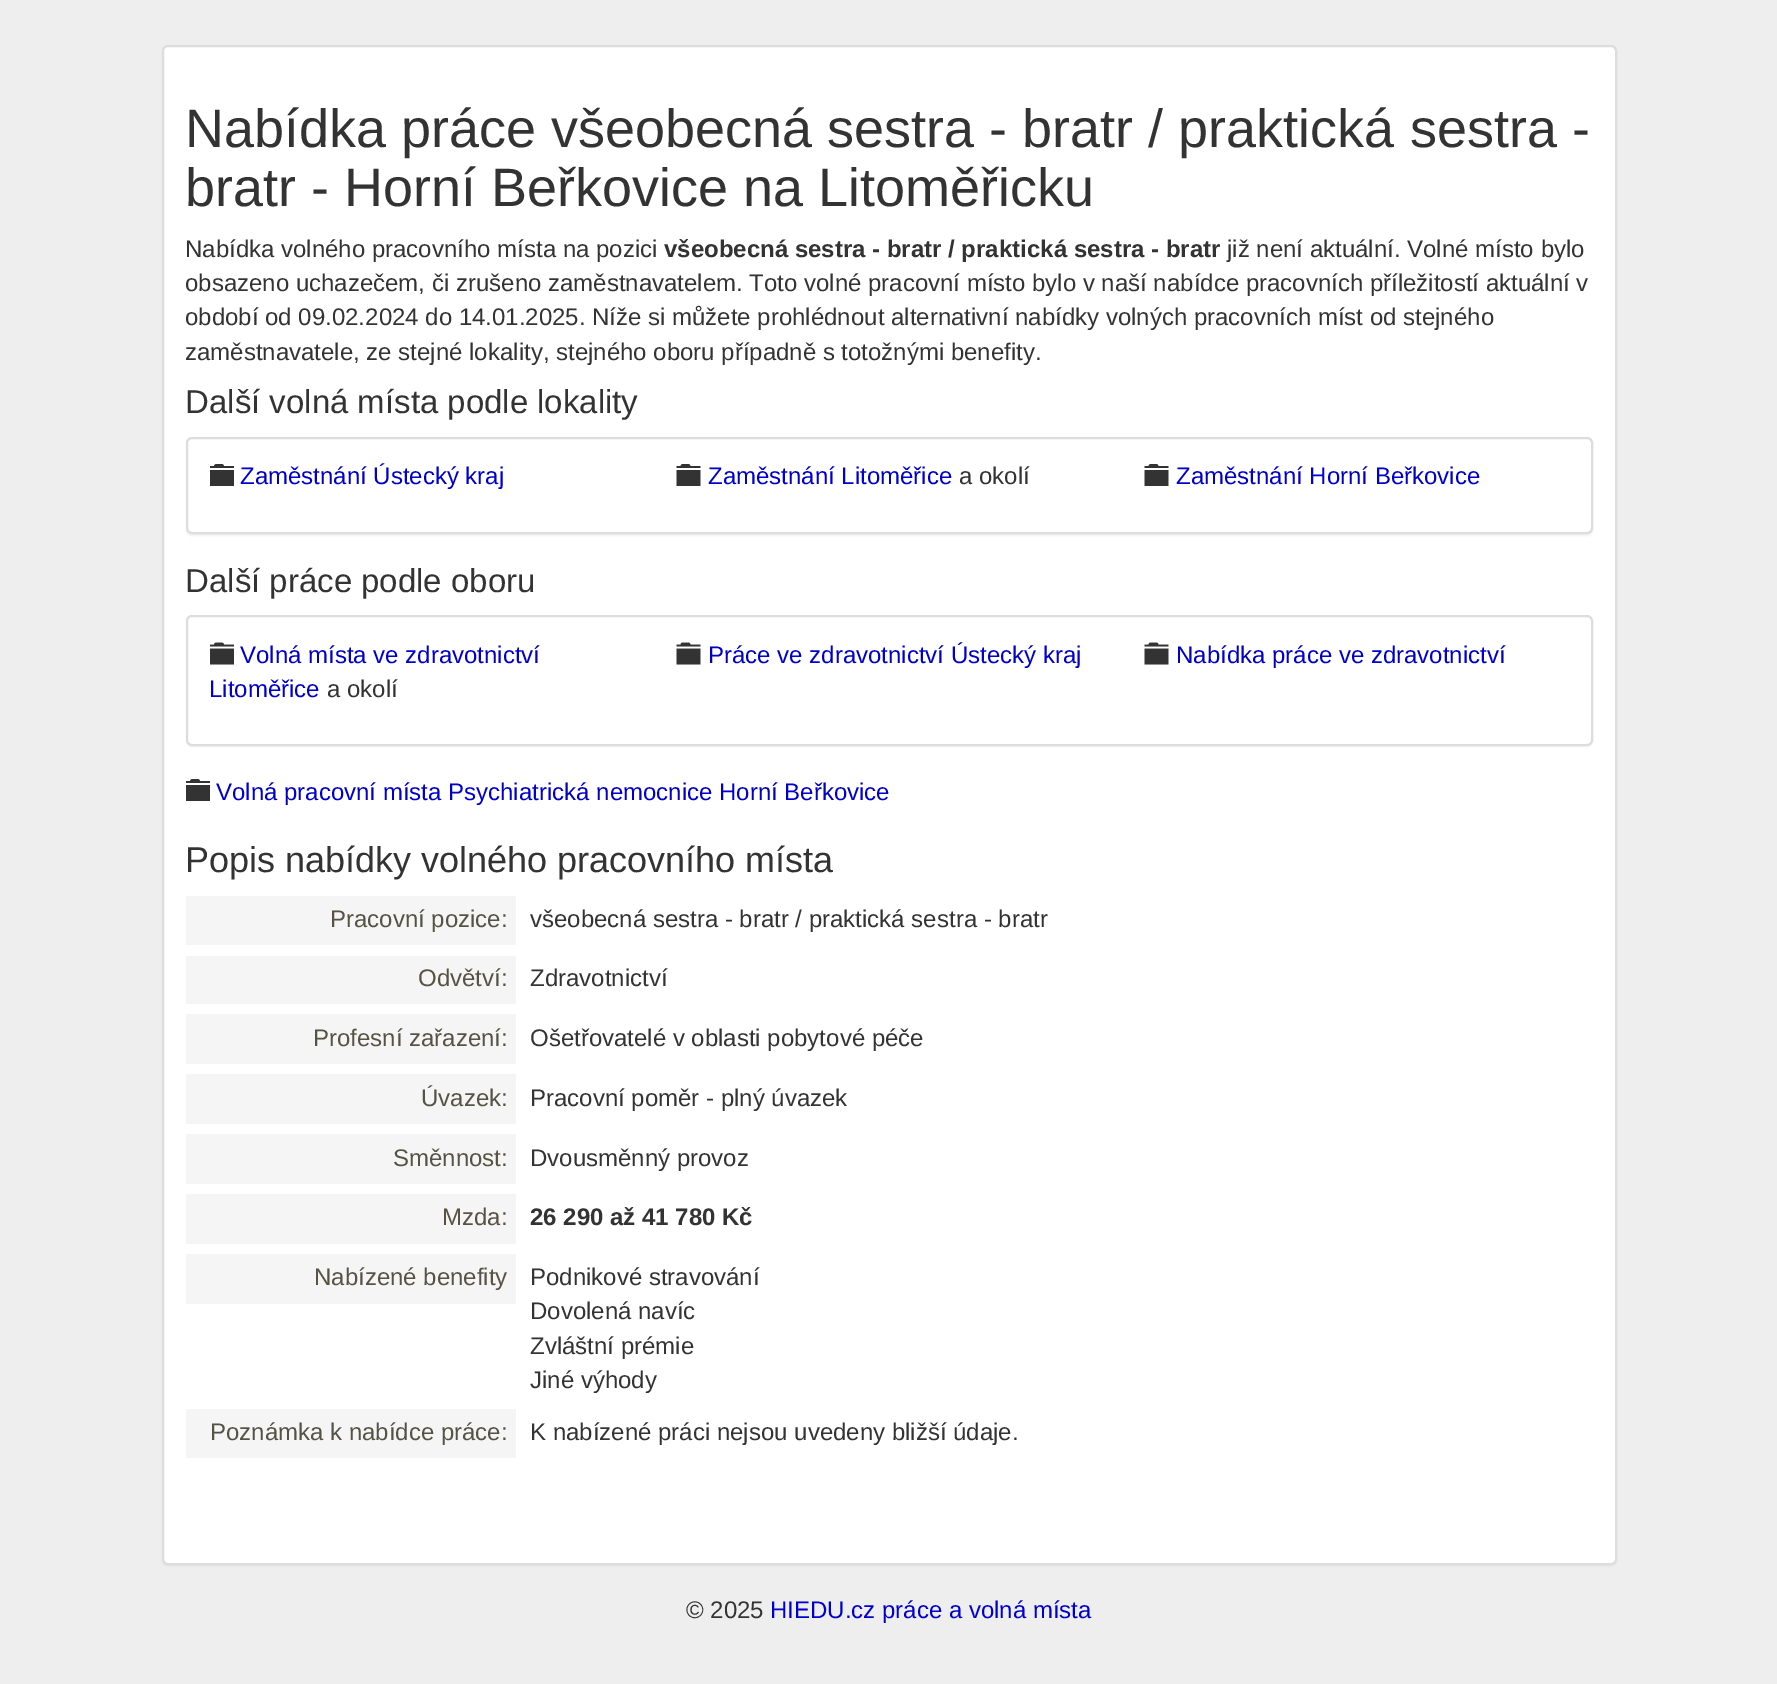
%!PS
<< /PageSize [1777 1684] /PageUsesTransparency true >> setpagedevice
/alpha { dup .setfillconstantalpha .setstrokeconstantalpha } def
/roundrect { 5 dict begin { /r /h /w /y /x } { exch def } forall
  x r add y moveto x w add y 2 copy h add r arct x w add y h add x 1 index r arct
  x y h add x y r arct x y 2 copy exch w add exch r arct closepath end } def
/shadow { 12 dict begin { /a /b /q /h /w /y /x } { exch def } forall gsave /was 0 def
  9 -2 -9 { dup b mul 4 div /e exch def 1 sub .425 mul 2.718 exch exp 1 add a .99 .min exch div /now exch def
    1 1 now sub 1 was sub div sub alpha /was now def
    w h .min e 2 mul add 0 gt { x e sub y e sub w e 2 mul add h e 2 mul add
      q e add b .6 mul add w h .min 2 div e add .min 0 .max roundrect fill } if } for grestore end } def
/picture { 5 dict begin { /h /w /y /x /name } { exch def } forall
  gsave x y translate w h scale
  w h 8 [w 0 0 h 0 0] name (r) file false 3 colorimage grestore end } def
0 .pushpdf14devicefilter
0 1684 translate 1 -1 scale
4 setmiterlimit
0.933 setgray
0 0 1777 1684 rectfill
0 setgray
162 47 1455 1519 6 1 0.05 shadow
1 setgray
163 46 1453 1518 5 roundrect gsave fill grestore
0.867 setgray
2 setlinewidth
stroke
/LiberationSans-Regular [54 0 0 -54 0 0] selectfont
0.2 setgray
185 147 moveto (Nabídka práce všeobecná sestra - bratr / praktická sestra -) show
185 206 moveto (bratr - Horní Beřkovice na Litoměřicku) show
/LiberationSans-Regular [24 0 0 -24 0 0] selectfont
185 257 moveto (Nabídka volného pracovního místa na pozici) show
/LiberationSans-Bold [24 0 0 -24 0 0] selectfont
664 257 moveto (všeobecná sestra - bratr / praktická sestra - bratr) show
/LiberationSans-Regular [24 0 0 -24 0 0] selectfont
1227 257 moveto (již není aktuální. Volné místo bylo) show
185 291 moveto (obsazeno uchazečem, či zrušeno zaměstnavatelem. Toto volné pracovní místo bylo v naší nabídce pracovních příležitostí aktuální v) show
185 325 moveto (období od 09.02.2024 do 14.01.2025. Níže si můžete prohlédnout alternativní nabídky volných pracovních míst od stejného) show
185 360 moveto (zaměstnavatele, ze stejné lokality, stejného oboru případně s totožnými benefity.) show
/LiberationSans-Regular [33 0 0 -33 0 0] selectfont
185 413 moveto (Další volná místa podle lokality) show
0 setgray
186 438 1407 98 6 1 0.05 shadow
1 setgray
187 438 1405 95 5 roundrect gsave fill grestore
0.867 setgray
stroke
(img1.rgb) 210 464 24 22 picture
/LiberationSans-Regular [24 0 0 -24 0 0] selectfont
0 0 0.8 setrgbcolor
240 484 moveto (Zaměstnání Ústecký kraj) show
(img2.rgb) 676 464 25 22 picture
708 484 moveto (Zaměstnání Litoměřice) show
0.2 setgray
959 484 moveto (a okolí) show
(img2.rgb) 1144 464 25 22 picture
0 0 0.8 setrgbcolor
1176 484 moveto (Zaměstnání Horní Beřkovice) show
/LiberationSans-Regular [33 0 0 -33 0 0] selectfont
0.2 setgray
185 592 moveto (Další práce podle oboru) show
0 setgray
186 617 1407 130 6 1 0.05 shadow
1 setgray
187 616 1405 129 5 roundrect gsave fill grestore
0.867 setgray
stroke
(img3.rgb) 210 642 24 23 picture
/LiberationSans-Regular [24 0 0 -24 0 0] selectfont
0 0 0.8 setrgbcolor
240 663 moveto (Volná místa ve zdravotnictví) show
209 697 moveto (Litoměřice) show
0.2 setgray
327 697 moveto (a okolí) show
(img4.rgb) 676 642 25 23 picture
0 0 0.8 setrgbcolor
708 663 moveto (Práce ve zdravotnictví Ústecký kraj) show
(img4.rgb) 1144 642 25 23 picture
1176 663 moveto (Nabídka práce ve zdravotnictví) show
(img1.rgb) 186 779 24 22 picture
216 800 moveto (Volná pracovní místa Psychiatrická nemocnice Horní Beřkovice) show
/LiberationSans-Regular [36 0 0 -36 0 0] selectfont
0.2 setgray
185 872 moveto (Popis nabídky volného pracovního místa) show
0.961 setgray
186 896 330 49 rectfill
/LiberationSans-Regular [24 0 0 -24 0 0] selectfont
0.333 0.329 0.267 setrgbcolor
330 927 moveto (Pracovní pozice:) show
0.2 setgray
530 927 moveto (všeobecná sestra - bratr / praktická sestra - bratr) show
0.961 setgray
186 956 330 48 rectfill
0.333 0.329 0.267 setrgbcolor
418 986 moveto (Odvětví:) show
0.2 setgray
530 986 moveto (Zdravotnictví) show
0.961 setgray
186 1014 330 50 rectfill
0.333 0.329 0.267 setrgbcolor
313 1046 moveto (Profesní zařazení:) show
0.2 setgray
530 1046 moveto (Ošetřovatelé v oblasti pobytové péče) show
0.961 setgray
186 1074 330 50 rectfill
0.333 0.329 0.267 setrgbcolor
421 1106 moveto (Úvazek:) show
0.2 setgray
530 1106 moveto (Pracovní poměr - plný úvazek) show
0.961 setgray
186 1134 330 50 rectfill
0.333 0.329 0.267 setrgbcolor
393 1166 moveto (Směnnost:) show
0.2 setgray
530 1166 moveto (Dvousměnný provoz) show
0.961 setgray
186 1194 330 50 rectfill
0.333 0.329 0.267 setrgbcolor
442 1225 moveto (Mzda:) show
/LiberationSans-Bold [24 0 0 -24 0 0] selectfont
0.2 setgray
530 1225 moveto (26 290 až 41 780 Kč) show
0.961 setgray
186 1254 330 50 rectfill
/LiberationSans-Regular [24 0 0 -24 0 0] selectfont
0.333 0.329 0.267 setrgbcolor
314 1285 moveto (Nabízené benefity) show
0.2 setgray
530 1285 moveto (Podnikové stravování) show
530 1319 moveto (Dovolená navíc) show
530 1354 moveto (Zvláštní prémie) show
530 1388 moveto (Jiné výhody) show
0.961 setgray
186 1409 330 49 rectfill
0.333 0.329 0.267 setrgbcolor
210 1440 moveto (Poznámka k nabídce práce:) show
0.2 setgray
530 1440 moveto (K nabízené práci nejsou uvedeny bližší údaje.) show
686 1618 moveto (© 2025) show
0 0 0.8 setrgbcolor
770 1618 moveto (HIEDU.cz práce a volná místa) show
.poppdf14devicefilter showpage
